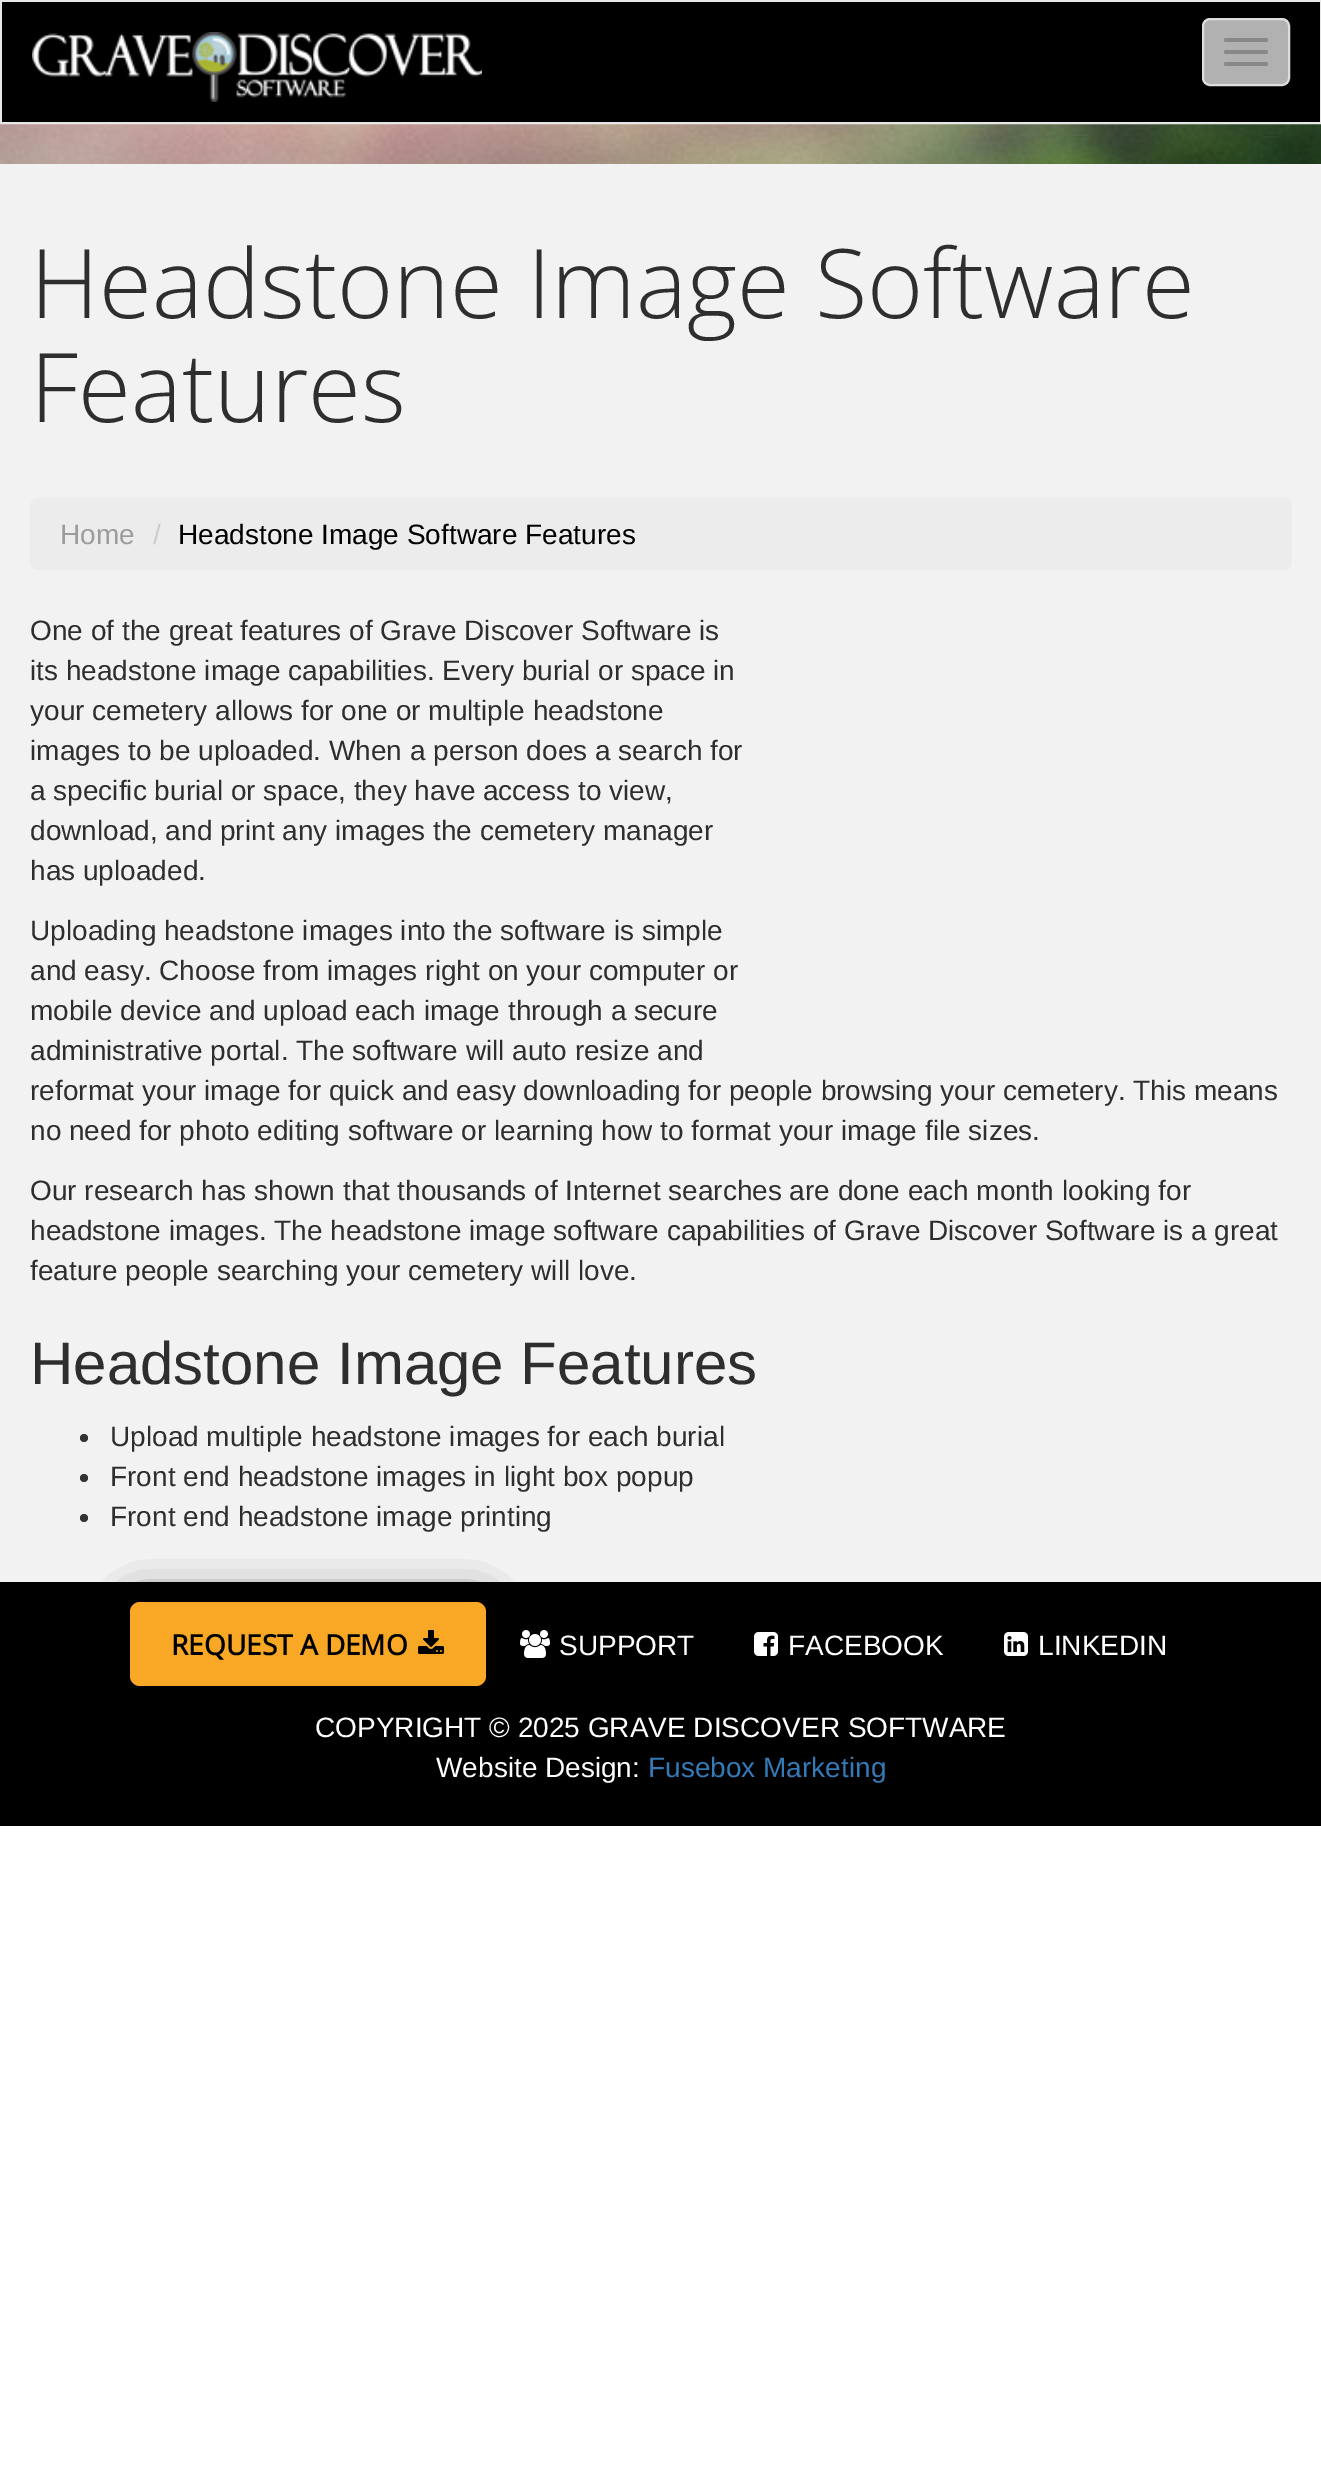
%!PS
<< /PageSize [1321 2471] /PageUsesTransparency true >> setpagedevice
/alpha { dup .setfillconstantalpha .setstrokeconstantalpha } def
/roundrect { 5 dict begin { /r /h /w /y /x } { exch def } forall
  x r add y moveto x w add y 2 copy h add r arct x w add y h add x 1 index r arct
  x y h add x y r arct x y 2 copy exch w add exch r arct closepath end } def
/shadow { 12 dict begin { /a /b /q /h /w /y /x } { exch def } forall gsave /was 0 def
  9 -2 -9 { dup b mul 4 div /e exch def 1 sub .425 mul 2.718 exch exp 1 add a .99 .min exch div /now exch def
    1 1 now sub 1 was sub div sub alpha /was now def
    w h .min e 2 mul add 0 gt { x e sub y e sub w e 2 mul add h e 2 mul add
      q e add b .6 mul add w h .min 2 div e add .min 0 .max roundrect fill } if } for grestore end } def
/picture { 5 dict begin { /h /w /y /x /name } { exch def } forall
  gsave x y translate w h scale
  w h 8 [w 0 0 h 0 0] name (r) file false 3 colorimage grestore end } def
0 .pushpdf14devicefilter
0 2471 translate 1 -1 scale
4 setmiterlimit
1 setgray
0 0 1321 2471 rectfill
(img1.rgb) 0 124 1321 40 picture
0.906 setgray
2 setlinewidth
1 1 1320 122 rectstroke
0 setgray
2 2 1318 120 rectfill
(img2.rgb) 32 32 450 70 picture
0.694 setgray
1203 19 86 66 7 roundrect gsave fill grestore
0.867 setgray
stroke
0.533 setgray
1224 38 44 4 2 roundrect fill
1224 50 44 4 2 roundrect fill
1224 62 44 4 2 roundrect fill
0.949 setgray
0 164 1321 1418 rectfill
/OpenSans-Light [96 0 0 -96 0 0] selectfont
0.18 setgray
30 318 moveto (Headstone Image Software) show
30 422 moveto (Features) show
0.925 setgray
30 498 1262 72 8 roundrect fill
/LiberationSans-Regular [28 0 0 -28 0 0] selectfont
0.612 setgray
60 544 moveto (Home) show
0.8 setgray
153 544 moveto (/) show
0 setgray
178 544 moveto (Headstone Image Software Features) show
0.18 setgray
30 640 moveto (One of the great features of Grave Discover Software is) show
30 680 moveto (its headstone image capabilities. Every burial or space in) show
30 720 moveto (your cemetery allows for one or multiple headstone) show
30 760 moveto (images to be uploaded. When a person does a search for) show
30 800 moveto (a specific burial or space, they have access to view,) show
30 840 moveto (download, and print any images the cemetery manager) show
30 880 moveto (has uploaded.) show
30 940 moveto (Uploading headstone images into the software is simple) show
30 980 moveto (and easy. Choose from images right on your computer or) show
30 1020 moveto (mobile device and upload each image through a secure) show
30 1060 moveto (administrative portal. The software will auto resize and) show
30 1100 moveto (reformat your image for quick and easy downloading for people browsing your cemetery. This means) show
30 1140 moveto (no need for photo editing software or learning how to format your image file sizes.) show
30 1200 moveto (Our research has shown that thousands of Internet searches are done each month looking for) show
30 1240 moveto (headstone images. The headstone image software capabilities of Grave Discover Software is a great) show
30 1280 moveto (feature people searching your cemetery will love.) show
/LiberationSans-Regular [60 0 0 -60 0 0] selectfont
30 1384 moveto (Headstone Image Features) show
0.2 setgray
newpath 84 1438 4 0 360 arc closepath fill
/LiberationSans-Regular [28 0 0 -28 0 0] selectfont
0.18 setgray
110 1446 moveto (Upload multiple headstone images for each burial) show
0.2 setgray
newpath 84 1478 4 0 360 arc closepath fill
0.18 setgray
110 1486 moveto (Front end headstone images in light box popup) show
0.2 setgray
newpath 84 1518 4 0 360 arc closepath fill
0.18 setgray
110 1526 moveto (Front end headstone image printing) show
0 setgray
0 1582 1321 244 rectfill
130 1604 356 84 10 20 1 shadow
0.976 0.659 0.145 setrgbcolor
130 1602 356 84 10 roundrect fill
/OpenSans-Bold [28 0 0 -28 0 0] selectfont
0 setgray
171 1655 moveto (REQUEST A DEMO) show
(img3.rgb) 418 1630 26 24 picture
(img4.rgb) 520 1630 30 28 picture
/LiberationSans-Regular [28 0 0 -28 0 0] selectfont
1 setgray
559 1655 moveto (SUPPORT) show
(img5.rgb) 754 1632 24 24 picture
788 1655 moveto (FACEBOOK) show
(img6.rgb) 1004 1632 24 24 picture
1038 1655 moveto (LINKEDIN) show
315 1737 moveto (COPYRIGHT © 2025 GRAVE DISCOVER SOFTWARE) show
436 1777 moveto (Website Design:) show
0.2 0.478 0.718 setrgbcolor
648 1777 moveto (Fusebox Marketing) show
.poppdf14devicefilter showpage
